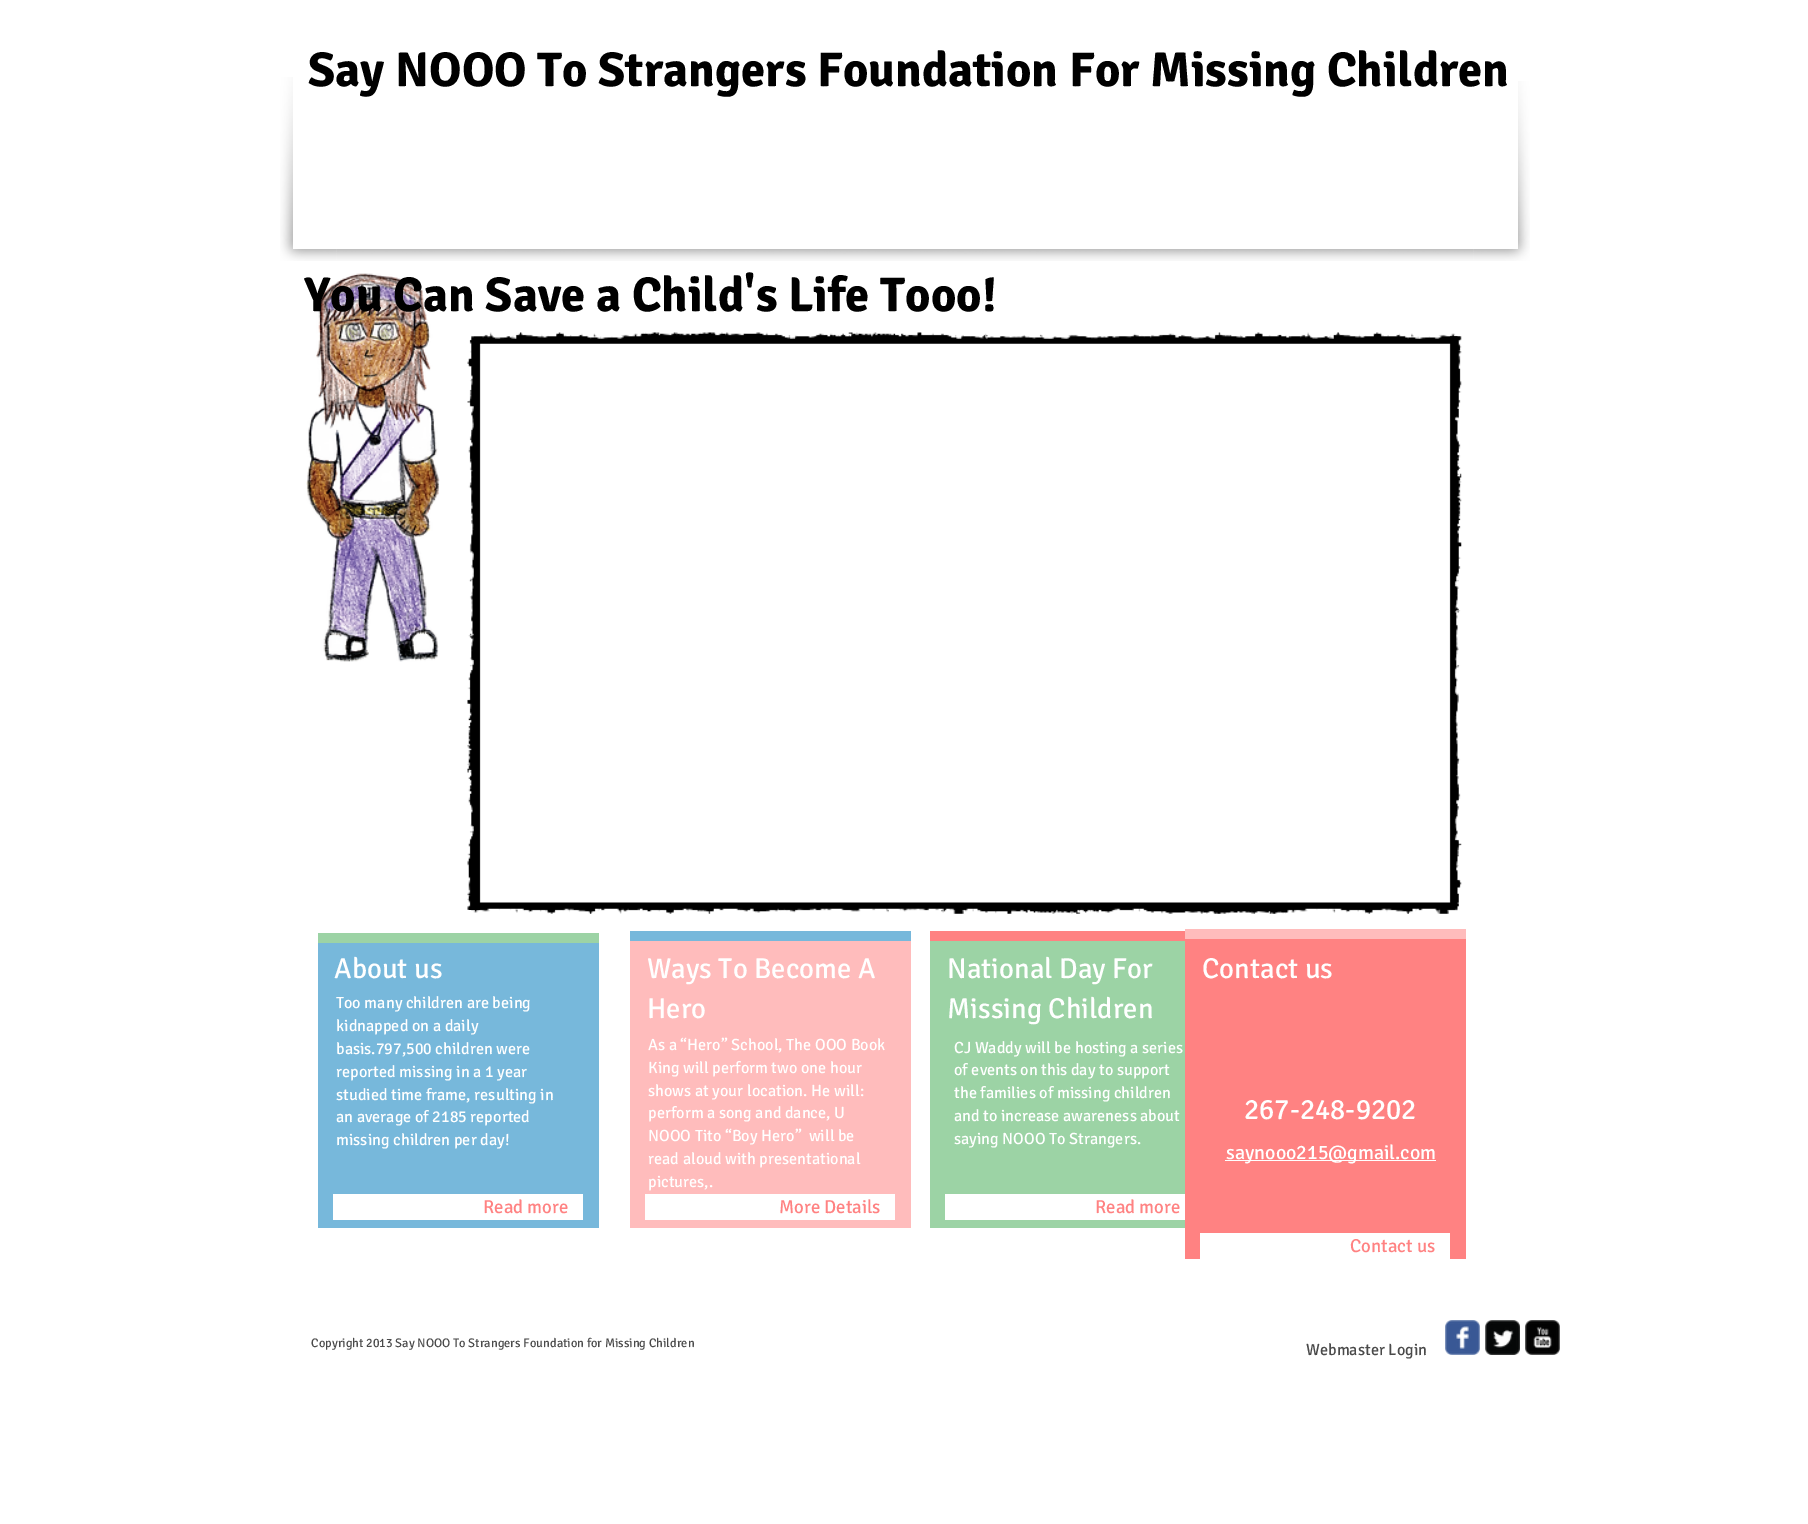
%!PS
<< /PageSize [1808 1524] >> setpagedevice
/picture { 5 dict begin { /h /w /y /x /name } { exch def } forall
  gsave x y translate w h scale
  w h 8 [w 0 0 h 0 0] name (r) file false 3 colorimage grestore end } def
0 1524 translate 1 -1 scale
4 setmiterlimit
1 setgray
0 0 1808 1524 rectfill
(img1.rgb) 280 77 57 184 picture
(img2.rgb) 336 249 1138 12 picture
(img3.rgb) 1473 81 57 180 picture
293 77 1225 172 rectfill
/Signika-Bold [48.75 0 0 -48.75 0 0] selectfont
0 setgray
308 86 moveto (Say NOOO To Strangers Foundation For Missing Children) show
(img4.rgb) 306 273 134 389 picture
304 311 moveto (You Can Save a Child's Life Tooo!) show
(img5.rgb) 467 332 991 578 picture
(img6.rgb) 471 336 991 578 picture
0.467 0.722 0.859 setrgbcolor
318 943 281 285 rectfill
0.612 0.827 0.647 setrgbcolor
318 933 281 10 rectfill
/Signika-Regular [28.75 0 0 -28.75 0 0] selectfont
1 setgray
334 978 moveto (About us) show
/Signika-Regular [16.25 0 0 -16.25 0 0] selectfont
336 1008 moveto (Too many children are being) show
336 1031 moveto (kidnapped on a daily) show
336 1054 moveto (basis.797,500 children were) show
336 1077 moveto (reported missing in a 1 year) show
336 1100 moveto (studied time frame, resulting in) show
336 1122 moveto (an average of 2185 reported) show
336 1145 moveto (missing children per day!) show
333 1194 250 26 rectfill
/Signika-Regular [18.75 0 0 -18.75 0 0] selectfont
1 0.51 0.51 setrgbcolor
483 1213 moveto (Read more) show
1 0.737 0.737 setrgbcolor
630 941 281 287 rectfill
0.467 0.722 0.859 setrgbcolor
630 931 281 10 rectfill
/Signika-Regular [28.75 0 0 -28.75 0 0] selectfont
1 setgray
647 978 moveto (Ways To Become A) show
647 1018 moveto (Hero) show
/Signika-Regular [16.25 0 0 -16.25 0 0] selectfont
648 1050 moveto (As a “Hero” School, The OOO Book) show
648 1073 moveto (King will perform two one hour) show
648 1096 moveto (shows at your location. He will:) show
648 1118 moveto (perform a song and dance, U) show
648 1141 moveto (NOOO Tito “Boy Hero”  will be) show
648 1164 moveto (read aloud with presentational) show
648 1187 moveto (pictures,.) show
645 1194 250 26 rectfill
/Signika-Regular [18.75 0 0 -18.75 0 0] selectfont
1 0.51 0.51 setrgbcolor
779 1213 moveto (More Details) show
0.612 0.827 0.647 setrgbcolor
930 941 255 287 rectfill
1 0.51 0.51 setrgbcolor
930 931 255 10 rectfill
/Signika-Regular [28.75 0 0 -28.75 0 0] selectfont
1 setgray
947 978 moveto (National Day For) show
947 1018 moveto (Missing Children) show
/Signika-Regular [16.25 0 0 -16.25 0 0] selectfont
954 1053 moveto (CJ Waddy will be hosting a series) show
954 1075 moveto (of events on this day to support) show
954 1098 moveto (the families of missing children) show
954 1121 moveto (and to increase awareness about) show
954 1144 moveto (saying NOOO To Strangers.) show
945 1194 240 26 rectfill
/Signika-Regular [18.75 0 0 -18.75 0 0] selectfont
1 0.51 0.51 setrgbcolor
1095 1213 moveto (Read more) show
1185 939 281 320 rectfill
1 0.737 0.737 setrgbcolor
1185 929 281 10 rectfill
/Signika-Regular [28.75 0 0 -28.75 0 0] selectfont
1 setgray
1202 978 moveto (Contact us) show
1244 1119 moveto (267-248-9202) show
1225 1160 211 1 rectfill
/Signika-Regular [20 0 0 -20 0 0] selectfont
1226 1159 moveto (saynooo215@gmail.com) show
1200 1233 250 26 rectfill
/Signika-Regular [18.75 0 0 -18.75 0 0] selectfont
1 0.51 0.51 setrgbcolor
1350 1252 moveto (Contact us) show
/Signika-Regular [12.5 0 0 -12.5 0 0] selectfont
0.29 setgray
311 1347 moveto (Copyright 2013 Say NOOO To Strangers Foundation for Missing Children) show
/Signika-Regular [16.25 0 0 -16.25 0 0] selectfont
1306 1355 moveto (Webmaster Login) show
(img7.rgb) 1445 1320 35 35 picture
(img8.rgb) 1485 1320 35 35 picture
(img9.rgb) 1525 1320 35 35 picture
showpage
